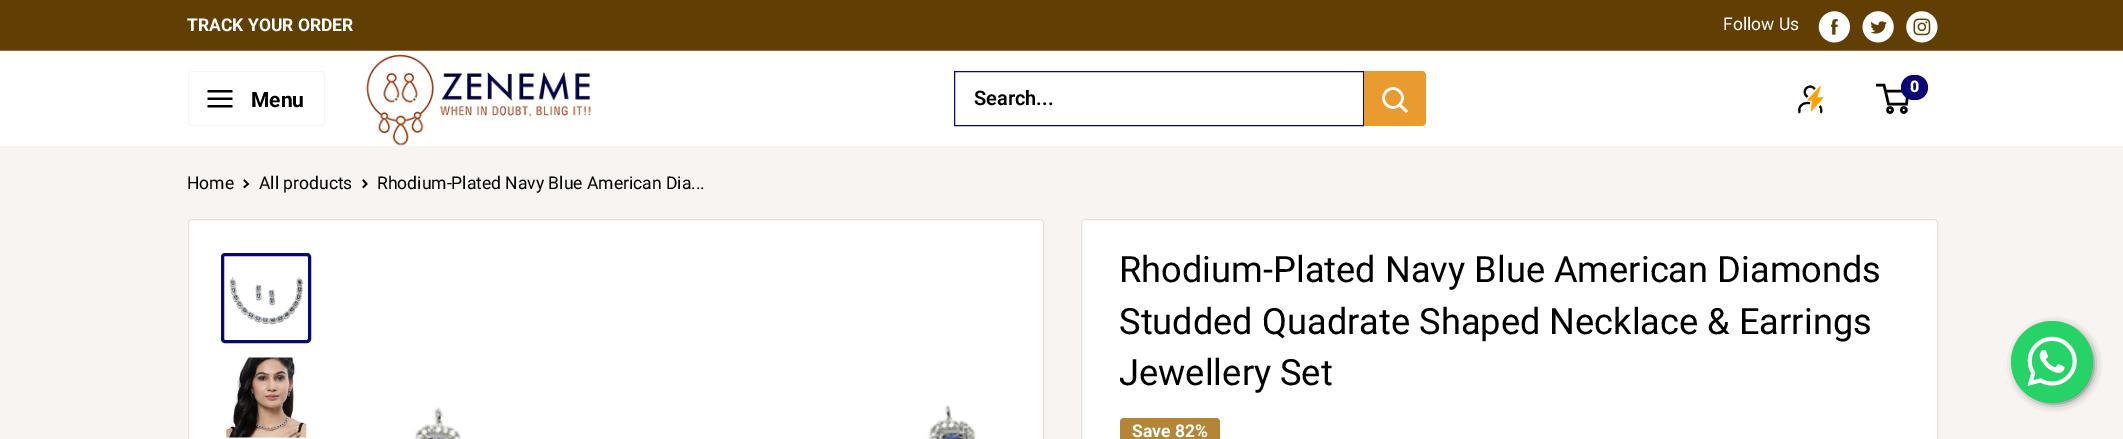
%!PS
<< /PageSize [2123 439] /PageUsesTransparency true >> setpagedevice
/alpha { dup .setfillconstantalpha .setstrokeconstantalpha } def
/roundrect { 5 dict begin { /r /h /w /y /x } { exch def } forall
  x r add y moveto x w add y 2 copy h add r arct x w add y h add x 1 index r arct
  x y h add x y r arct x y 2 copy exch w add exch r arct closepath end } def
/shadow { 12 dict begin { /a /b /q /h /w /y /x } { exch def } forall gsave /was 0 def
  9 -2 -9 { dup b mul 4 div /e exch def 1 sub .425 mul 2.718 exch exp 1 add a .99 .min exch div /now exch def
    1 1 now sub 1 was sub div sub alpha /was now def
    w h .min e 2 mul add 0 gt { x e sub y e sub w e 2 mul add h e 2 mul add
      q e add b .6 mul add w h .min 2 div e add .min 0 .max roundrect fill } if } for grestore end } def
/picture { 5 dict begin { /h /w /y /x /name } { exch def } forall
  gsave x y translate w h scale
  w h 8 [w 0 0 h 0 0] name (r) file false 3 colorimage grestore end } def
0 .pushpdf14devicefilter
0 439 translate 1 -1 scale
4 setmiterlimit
0.969 0.957 0.949 setrgbcolor
0 0 2123 439 rectfill
0.38 0.243 0.012 setrgbcolor
0 0 2123 50 rectfill
0.541 0.435 0.267 setrgbcolor
0 50 2123 1 rectfill
/Roboto-Bold [17.5 0 0 -17.5 0 0] selectfont
1 setgray
187 31 moveto (TRACK YOUR ORDER) show
/Roboto-Regular [17.5 0 0 -17.5 0 0] selectfont
1723 30 moveto (Follow Us) show
(img1.rgb) 1818 11 32 32 picture
(img2.rgb) 1862 11 32 32 picture
(img3.rgb) 1906 11 32 32 picture
0 51 2123 95 rectfill
(img4.rgb) 362 51 230 95 picture
(img5.rgb) 1798 85 26 29 picture
0 setgray
2.5 setlinewidth
newpath 1890 110 2.5 0 360 arc closepath stroke
newpath 1903.8 110 2.5 0 360 arc closepath stroke
newpath 1885.5 91 moveto 1908 91 lineto 1906.5 104 lineto 1888.5 104 lineto 1884 85 lineto 1876 85 lineto stroke
0.039 0.024 0.463 setrgbcolor
1901 75 27 25 12.5 roundrect fill
/Roboto-Black [16 0 0 -16 0 0] selectfont
1 setgray
1910 92 moveto (0) show
0.973 0.965 0.961 setrgbcolor
1 setlinewidth
188.5 71.5 136 54 3.5 roundrect stroke
(img6.rgb) 207 90 26 18 picture
/Roboto-Bold [21 0 0 -21 0 0] selectfont
0 setgray
251 107 moveto (Menu) show
0.973 0.965 0.961 setrgbcolor
newpath 959 72 moveto 1425 72 lineto 1424 71 1423 71 1422 71 curveto 958 71 lineto 956 71 954 73 954 75 curveto 954 122 lineto 954 123 954 124 955 125 curveto 955 84 lineto 955 82 953 72 959 72 curveto closepath fill
0.039 0.024 0.463 setrgbcolor
954.5 71.5 409 54 rectstroke
/Roboto-SemiBold [20 0 0 -20 0 0] selectfont
0 setgray
974 105 moveto (Search...) show
0.914 0.608 0.188 setrgbcolor
newpath 1364 71 moveto 1422 71 lineto 1424 71 1426 73 1426 75 curveto 1426 122 lineto 1426 124 1424 126 1422 126 curveto 1364 126 lineto closepath fill
1 setgray
2.5 setlinewidth
2 setlinecap
newpath 1406 111 moveto 1400 105 lineto stroke
0 setlinecap
newpath 1393 98 9.5 0 360 arc closepath stroke
/Roboto-Regular [17.5 0 0 -17.5 0 0] selectfont
0 setgray
187 189 moveto (Home) show
1.7 setlinewidth
2 setlinecap
newpath 244.5 180.5 moveto 248 184 lineto 244.5 187 lineto stroke
259 189 moveto (All products) show
newpath 363.5 180.5 moveto 366.5 184 lineto 363.5 187 lineto stroke
377 189 moveto (Rhodium-Plated Navy Blue American Dia...) show
1 setgray
188.5 219.5 855 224 3.5 roundrect gsave fill grestore
0.906 0.886 0.871 setrgbcolor
1 setlinewidth
0 setlinecap
stroke
0.039 0.024 0.463 setrgbcolor
3 setlinewidth
222.5 254.5 87 87 2.5 roundrect stroke
(img7.rgb) 229 276 74 49 picture
(img8.rgb) 226 357 81 81 picture
(img9.rgb) 413 405 564 34 picture
1 setgray
1081.5 219.5 856 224 3.5 roundrect gsave fill grestore
0.906 0.886 0.871 setrgbcolor
1 setlinewidth
stroke
/Roboto-Regular [36.25 0 0 -36.25 0 0] selectfont
0 setgray
1119 282 moveto (Rhodium-Plated Navy Blue American Diamonds) show
1119 334 moveto (Studded Quadrate Shaped Necklace & Earrings) show
1119 385 moveto (Jewellery Set) show
0.702 0.522 0.208 setrgbcolor
1120 418 100 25 4 roundrect fill
/Roboto-Bold [17.5 0 0 -17.5 0 0] selectfont
1 setgray
1132 437 moveto (Save 82%) show
0 setgray
2018 328 73 73 36.5 5 1 shadow
0.145 0.827 0.4 setrgbcolor
newpath 2052 362 41 0 360 arc closepath fill
(img10.rgb) 2027 336 50 50 picture
.poppdf14devicefilter showpage
